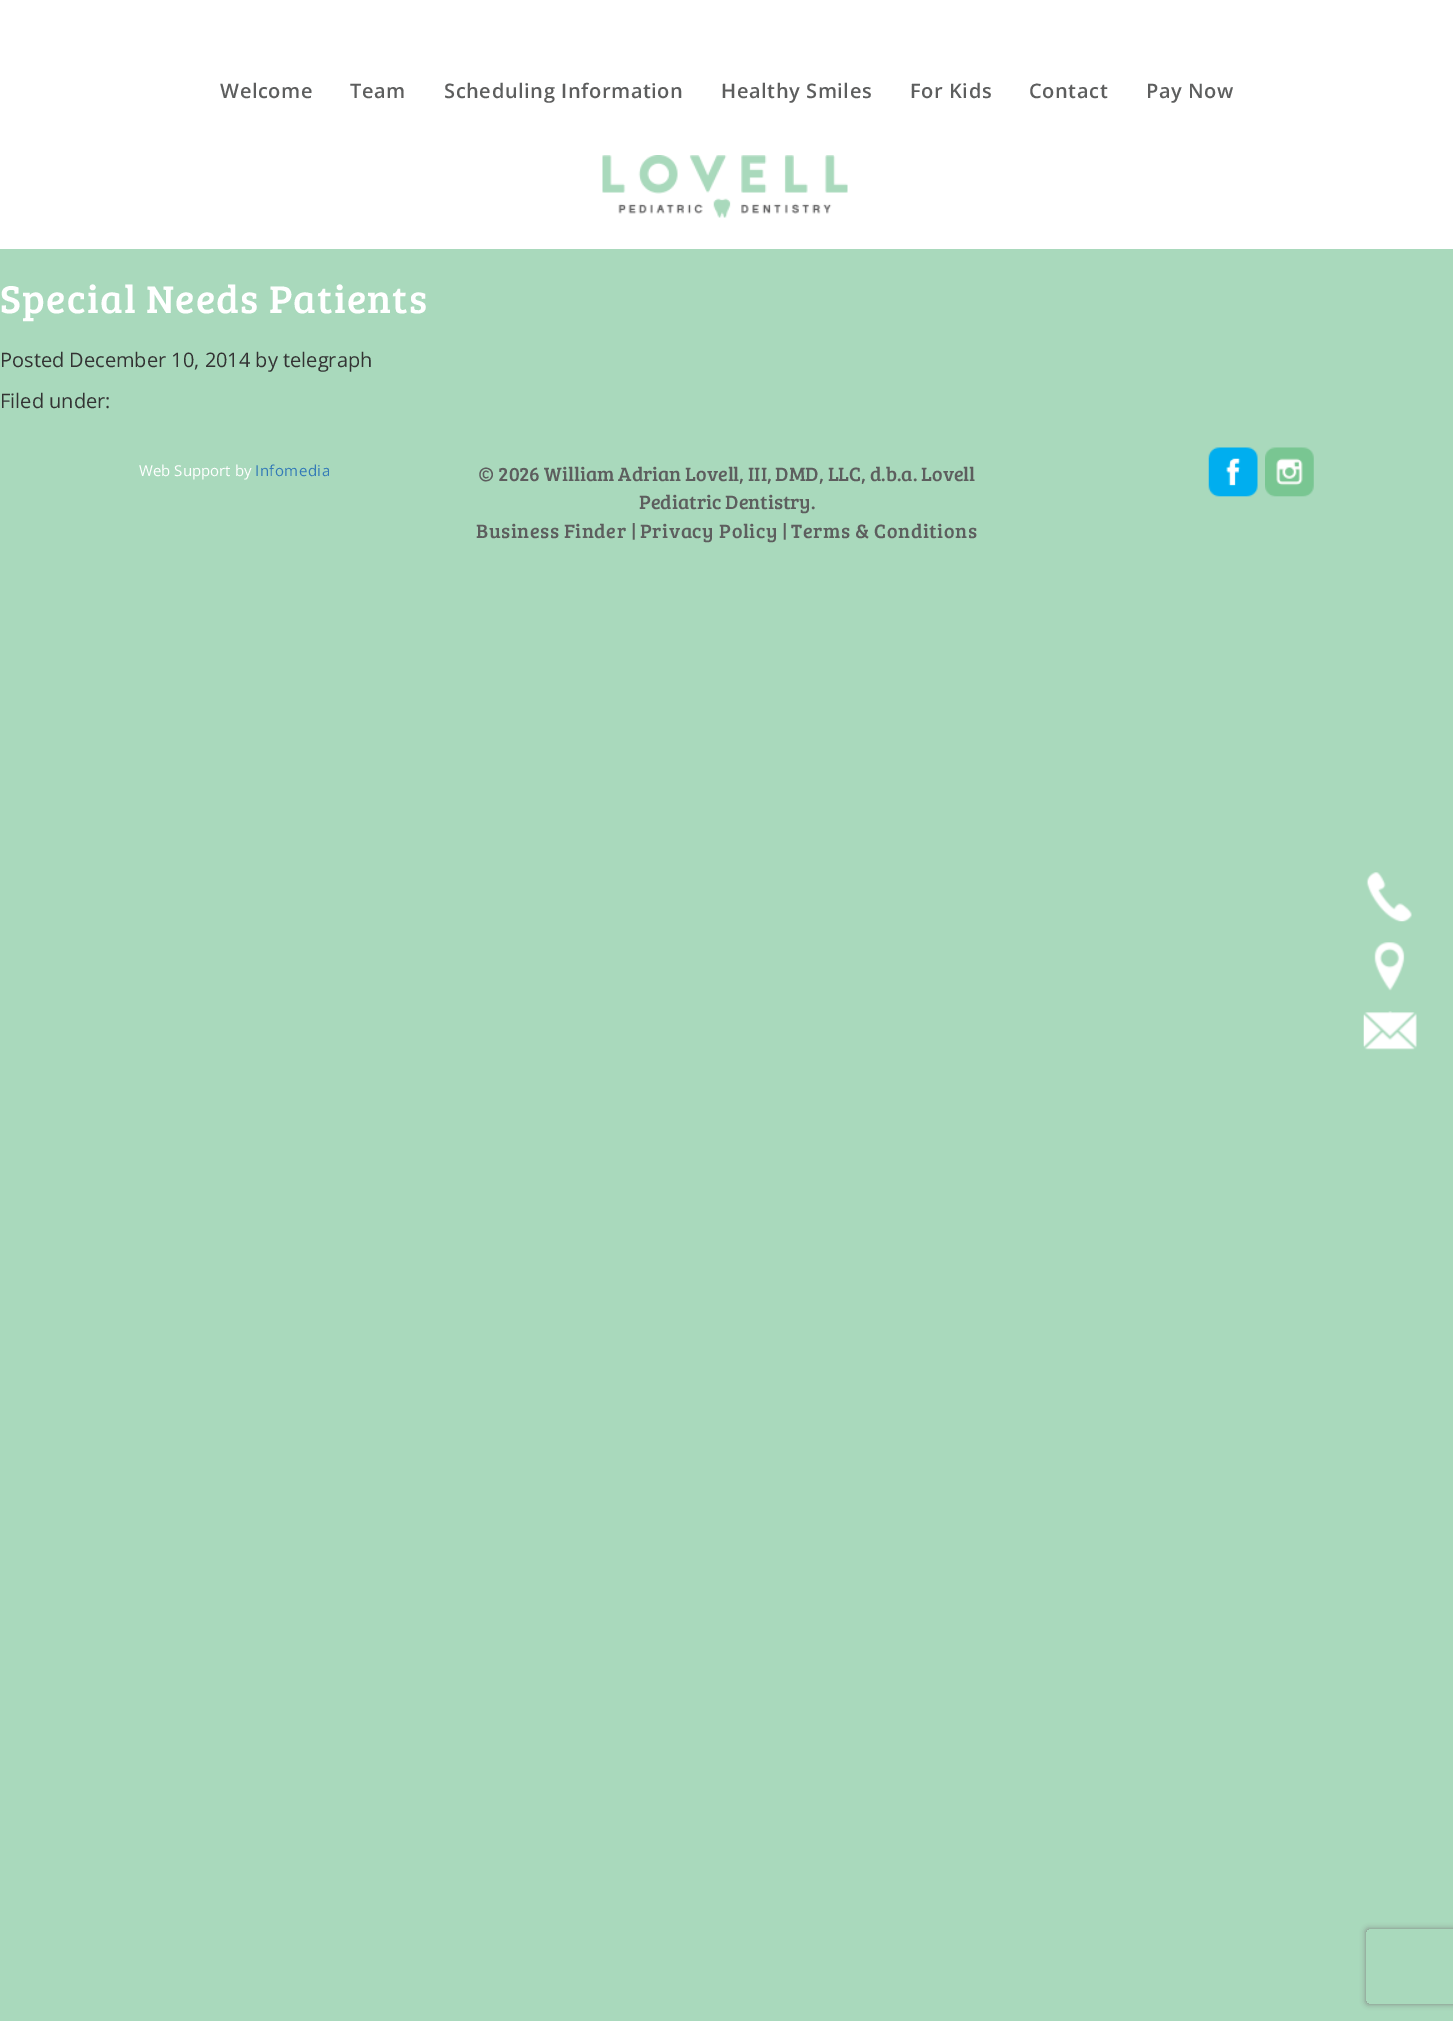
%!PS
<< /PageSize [1453 2021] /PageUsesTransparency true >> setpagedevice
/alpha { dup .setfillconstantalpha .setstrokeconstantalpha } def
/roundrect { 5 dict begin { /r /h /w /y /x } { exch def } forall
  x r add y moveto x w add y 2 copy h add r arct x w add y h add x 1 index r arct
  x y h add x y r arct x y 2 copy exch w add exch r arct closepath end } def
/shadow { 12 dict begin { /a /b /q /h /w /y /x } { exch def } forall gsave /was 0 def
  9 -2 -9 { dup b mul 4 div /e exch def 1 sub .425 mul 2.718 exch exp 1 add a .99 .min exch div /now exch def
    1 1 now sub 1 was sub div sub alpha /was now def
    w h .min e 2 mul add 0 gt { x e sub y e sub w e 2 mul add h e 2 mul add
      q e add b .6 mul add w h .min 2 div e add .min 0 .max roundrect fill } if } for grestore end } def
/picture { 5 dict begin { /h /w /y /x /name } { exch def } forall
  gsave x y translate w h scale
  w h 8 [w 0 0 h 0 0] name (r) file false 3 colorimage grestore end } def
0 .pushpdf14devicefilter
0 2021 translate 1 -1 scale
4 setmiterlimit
0.663 0.851 0.737 setrgbcolor
0 0 1453 2021 rectfill
1 setgray
0 0 1453 249 rectfill
/OpenSans-SemiBold [20 0 0 -20 0 0] selectfont
0.365 0.369 0.369 setrgbcolor
220 98 moveto 0.6 0 (Welcome) ashow
350 98 moveto 0.6 0 (Team) ashow
444 98 moveto 0.6 0 (Scheduling Information) ashow
721 98 moveto 0.6 0 (Healthy Smiles) ashow
910 98 moveto 0.6 0 (For Kids) ashow
1029 98 moveto 0.6 0 (Contact) ashow
1146 98 moveto 0.6 0 (Pay Now) ashow
(img1.rgb) 602 155 246 63 picture
/BreeSerif-Regular [40 0 0 -40 0 0] selectfont
1 setgray
0 313 moveto 1.2 0 (Special Needs Patients) ashow
/OpenSans-Regular [20 0 0 -20 0 0] selectfont
0.2 setgray
0 367 moveto (Posted December 10, 2014 by telegraph) show
0 408 moveto (Filed under:) show
/OpenSans-Regular [15 0 0 -15 0 0] selectfont
1 setgray
139 476 moveto (Web Support by) show
0.2 0.478 0.718 setrgbcolor
255 476 moveto 0.5 0 (Infomedia) ashow
/BreeSerif-Regular [20 0 0 -20 0 0] selectfont
0.365 0.369 0.369 setrgbcolor
478 481 moveto (© 2026 William Adrian Lovell, III, DMD, LLC, d.b.a. Lovell) show
639 509 moveto (Pediatric Dentistry.) show
476 538 moveto 0.6 0 (Business Finder) ashow
631 538 moveto (|) show
640 538 moveto 0.6 0 (Privacy Policy) ashow
782 538 moveto (|) show
791 538 moveto 0.6 0 (Terms & Conditions) ashow
(img2.rgb) 1208 447 50 50 picture
(img3.rgb) 1265 447 49 50 picture
(img4.rgb) 1366 872 46 50 picture
(img5.rgb) 1374 942 31 49 picture
(img6.rgb) 1363 1011 54 39 picture
gsave
newpath 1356 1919 moveto 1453 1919 lineto 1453 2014 lineto 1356 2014 lineto closepath 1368.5 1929 moveto 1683.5 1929 lineto 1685 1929 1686 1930 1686 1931.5 curveto 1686 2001.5 lineto 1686 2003 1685 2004 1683.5 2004 curveto 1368.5 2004 lineto 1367 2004 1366 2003 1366 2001.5 curveto 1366 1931.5 lineto 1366 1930 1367 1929 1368.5 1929 curveto closepath eoclip newpath
0.502 setgray
1366 1929 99 75 2.5 3 1 shadow
grestore
.poppdf14devicefilter showpage
